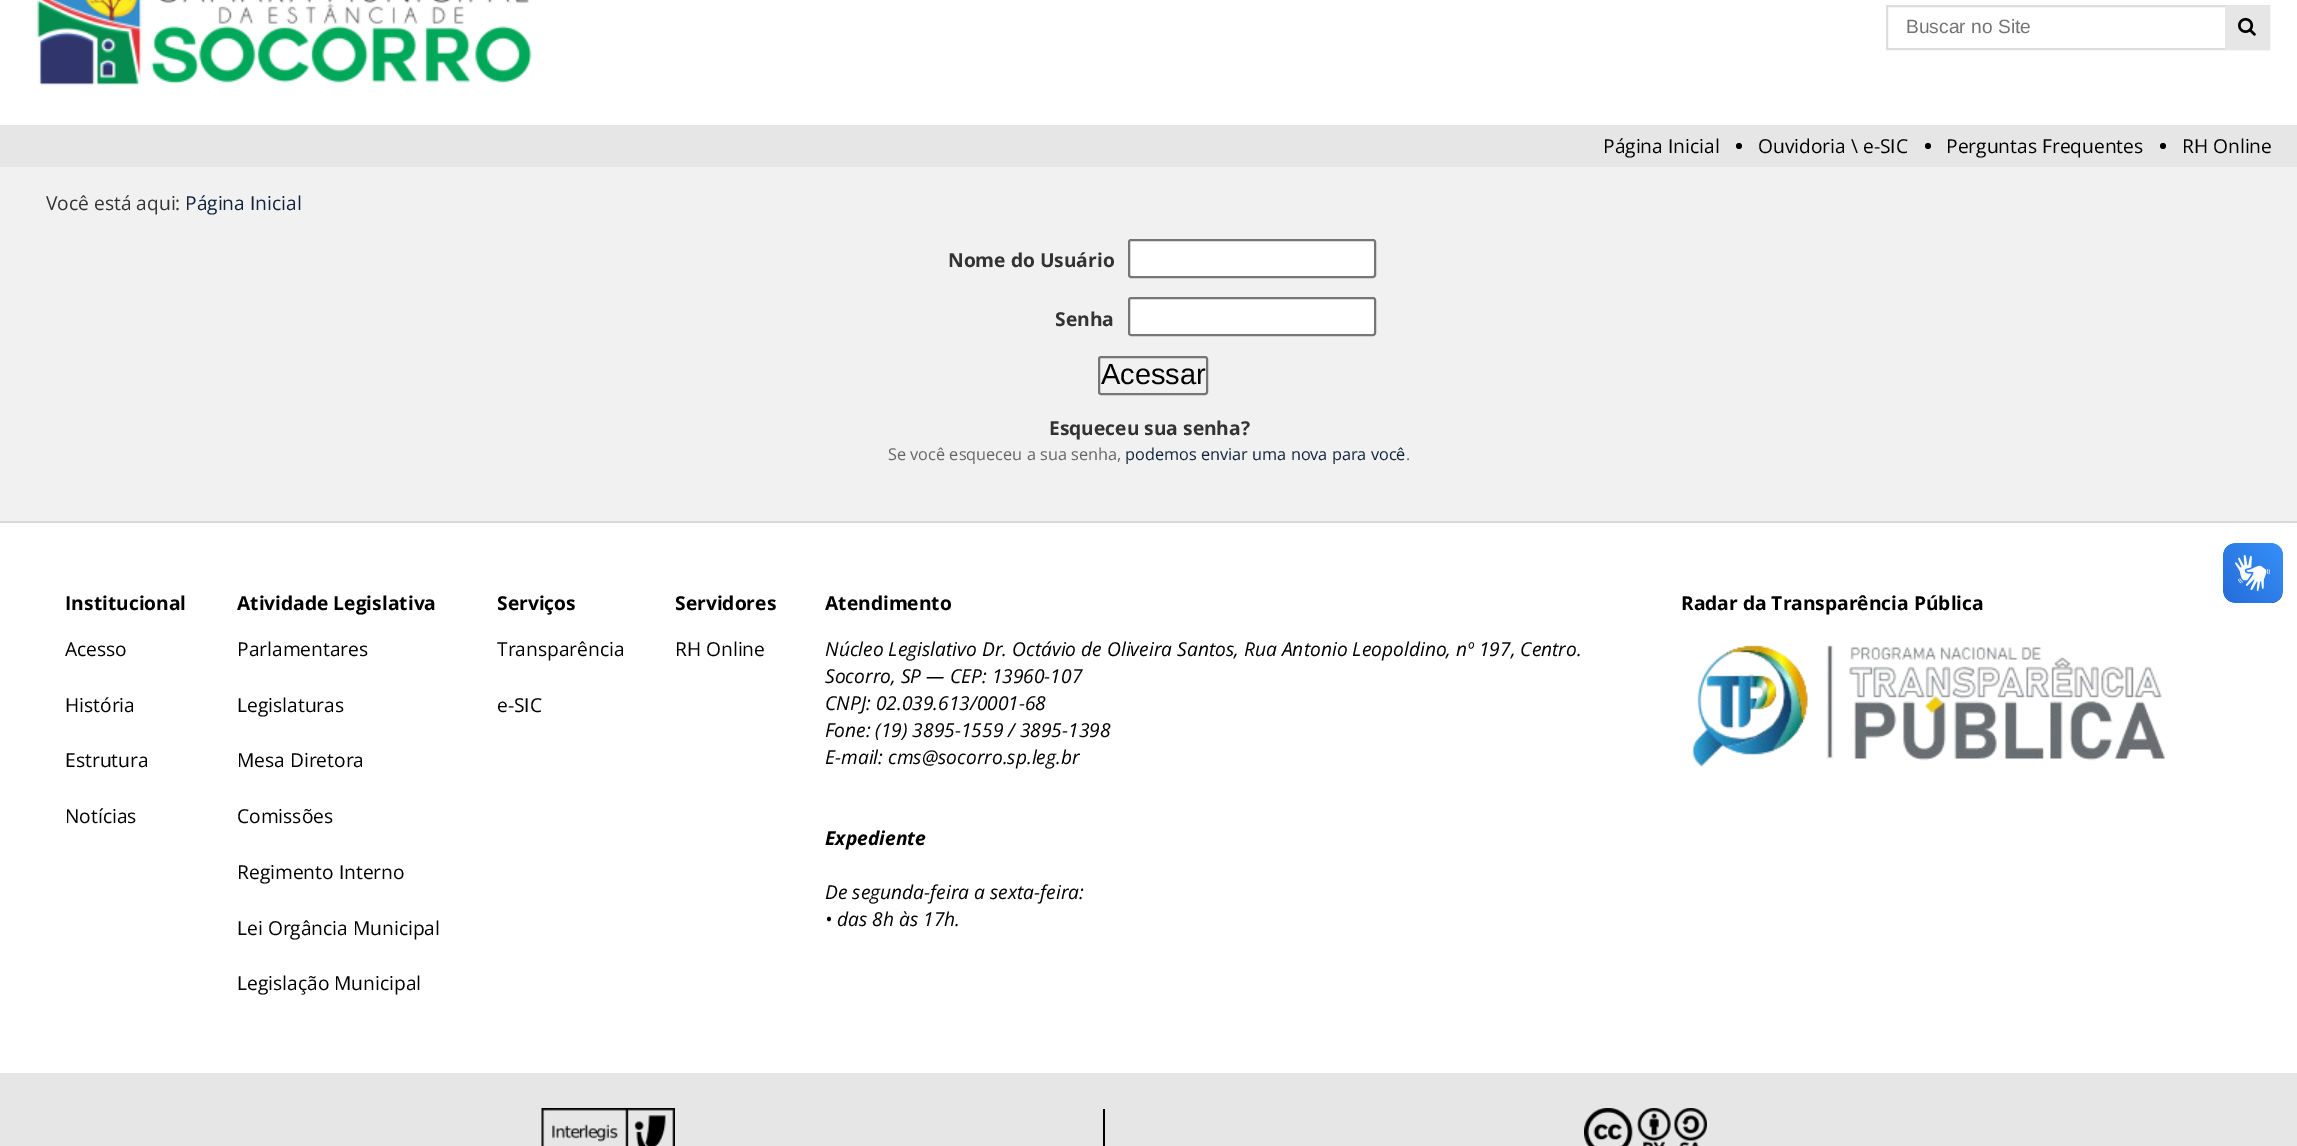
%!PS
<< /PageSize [2297 1146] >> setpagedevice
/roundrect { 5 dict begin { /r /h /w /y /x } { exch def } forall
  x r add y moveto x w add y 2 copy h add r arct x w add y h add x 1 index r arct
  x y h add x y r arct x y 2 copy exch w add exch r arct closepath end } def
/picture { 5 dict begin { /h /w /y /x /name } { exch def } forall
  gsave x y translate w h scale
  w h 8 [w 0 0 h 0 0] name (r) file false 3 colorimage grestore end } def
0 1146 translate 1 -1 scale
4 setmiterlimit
0.945 setgray
0 0 2297 1146 rectfill
1 setgray
0 0 2297 125 rectfill
(img1.rgb) 37 0 495 86 picture
0.867 setgray
2 setlinewidth
1887 6 382 43 rectstroke
/LiberationSans-Regular [19.2 0 0 -19.2 0 0] selectfont
0.459 setgray
1906 33 moveto (Buscar no Site) show
0.902 setgray
2225 5 45 45 rectfill
(img2.rgb) 2238 17 18 19 picture
0 125 2297 42 rectfill
/OpenSans-Regular [19.2 0 0 -19.2 0 0] selectfont
0 setgray
1603 153 moveto (Página Inicial) show
newpath 1739 146 3 0 360 arc closepath fill
1758 153 moveto (Ouvidoria \\ e-SIC) show
newpath 1928 146 3 0 360 arc closepath fill
1946 153 moveto (Perguntas Frequentes) show
newpath 2163 146 3 0 360 arc closepath fill
2182 153 moveto (RH Online) show
0.2 setgray
46 210 moveto (Você está aqui:) show
0.063 0.137 0.231 setrgbcolor
185 210 moveto (Página Inicial) show
/OpenSans-Bold [19.2 0 0 -19.2 0 0] selectfont
0.2 setgray
948 267 moveto (Nome do Usuário) show
1 setgray
1129 240 246 37 2 roundrect gsave fill grestore
0.463 setgray
stroke
0.2 setgray
1055 326 moveto (Senha) show
1 setgray
1129 298 246 37 2 roundrect gsave fill grestore
0.463 setgray
stroke
1099 357 108 37 2 roundrect stroke
/LiberationSans-Regular [29 0 0 -29 0 0] selectfont
0 setgray
1101 384 moveto (Acessar) show
/OpenSans-Bold [19.2 0 0 -19.2 0 0] selectfont
0.2 setgray
1049 435 moveto (Esqueceu sua senha?) show
/OpenSans-Regular [16.3 0 0 -16.3 0 0] selectfont
0.4 setgray
888 460 moveto (Se você esqueceu a sua senha,) show
0.063 0.137 0.231 setrgbcolor
1125 460 moveto (podemos enviar uma nova para você) show
0.4 setgray
1406 460 moveto (.) show
1 setgray
0 523 2297 550 rectfill
0.847 setgray
0 521 2297 2 rectfill
/OpenSans-Bold [19.2 0 0 -19.2 0 0] selectfont
0 setgray
65 610 moveto (Institucional) show
237 610 moveto (Atividade Legislativa) show
497 610 moveto (Serviços) show
675 610 moveto (Servidores) show
825 610 moveto (Atendimento) show
1681 610 moveto (Radar da Transparência Pública) show
/OpenSans-Regular [19.2 0 0 -19.2 0 0] selectfont
65 656 moveto (Acesso) show
65 712 moveto (História) show
65 767 moveto (Estrutura) show
65 823 moveto (Notícias) show
237 656 moveto (Parlamentares) show
237 712 moveto (Legislaturas) show
237 767 moveto (Mesa Diretora) show
237 823 moveto (Comissões) show
237 879 moveto (Regimento Interno) show
237 935 moveto (Lei Orgância Municipal) show
237 990 moveto (Legislação Municipal) show
497 656 moveto (Transparência) show
497 712 moveto (e-SIC) show
675 656 moveto (RH Online) show
/OpenSans-Italic [19.2 0 0 -19.2 0 0] selectfont
825 656 moveto (Núcleo Legislativo Dr. Octávio de Oliveira Santos, Rua Antonio Leopoldino, nº 197, Centro.) show
825 683 moveto (Socorro, SP — CEP: 13960-107) show
825 710 moveto (CNPJ: 02.039.613/0001-68) show
825 737 moveto (Fone: \(19\) 3895-1559 / 3895-1398) show
825 764 moveto (E-mail: cms@socorro.sp.leg.br) show
/OpenSans-BoldItalic [19.2 0 0 -19.2 0 0] selectfont
825 845 moveto (Expediente) show
/OpenSans-Italic [19.2 0 0 -19.2 0 0] selectfont
825 899 moveto (De segunda-feira a sexta-feira:) show
825 926 moveto (• das 8h às 17h.) show
(img3.rgb) 1692 645 473 122 picture
0.902 setgray
0 1073 2297 73 rectfill
(img4.rgb) 541 1108 134 38 picture
0 setgray
1103 1109 2 37 rectfill
(img5.rgb) 1584 1108 123 38 picture
(img6.rgb) 2223 543 60 60 picture
(img7.rgb) 2223 543 60 60 picture
showpage
